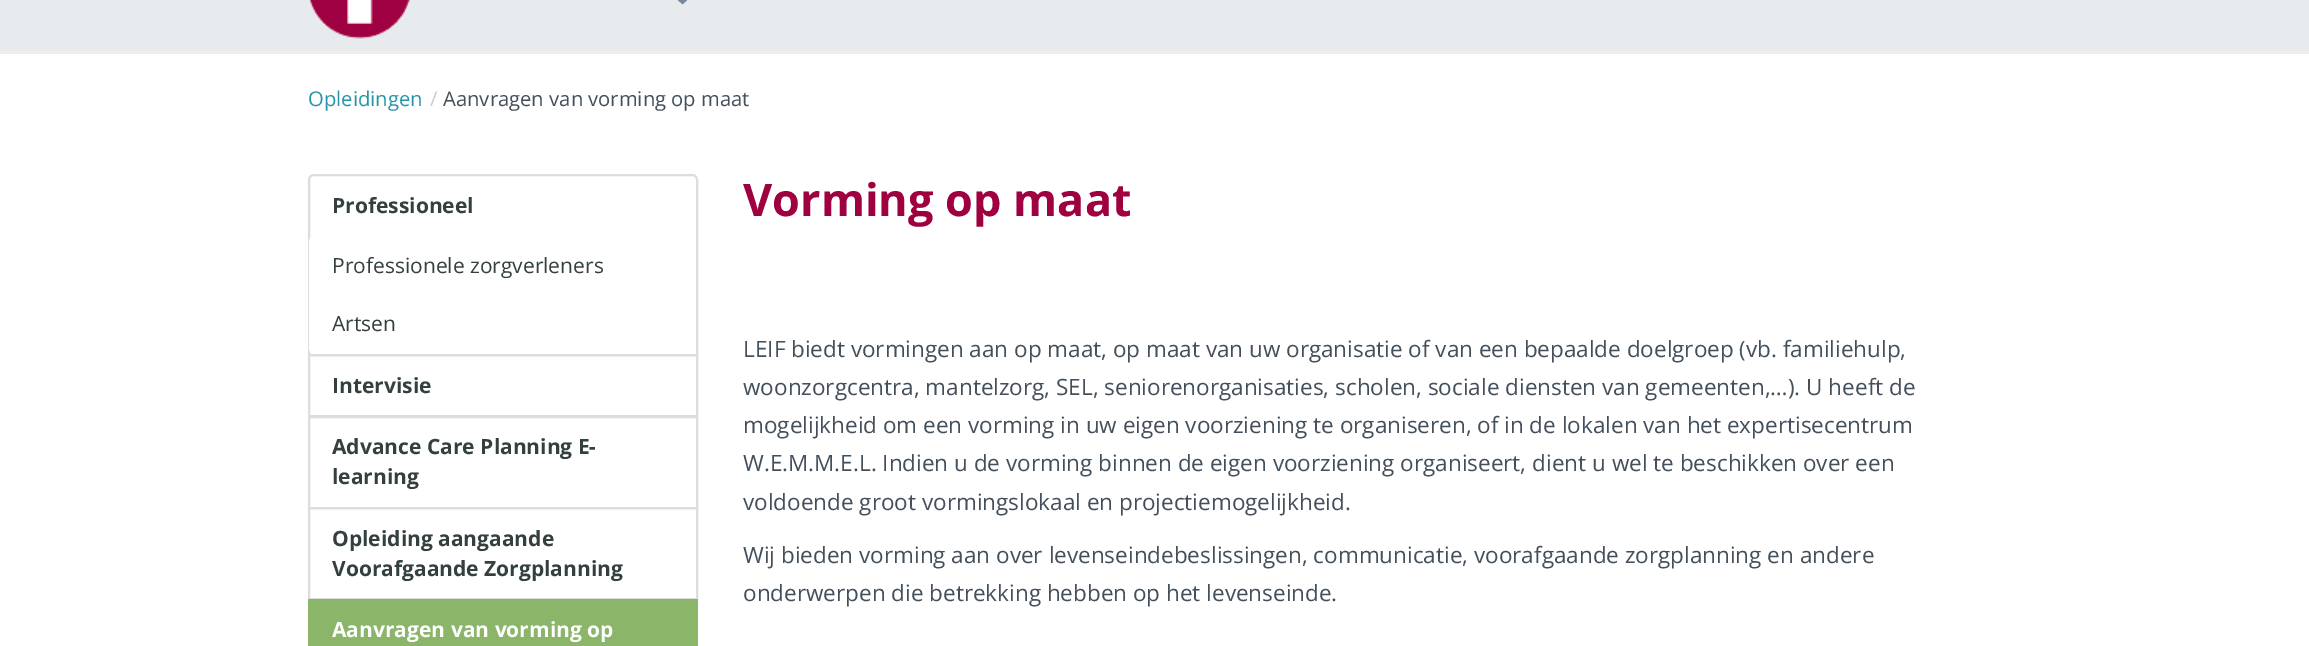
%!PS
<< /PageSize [2309 646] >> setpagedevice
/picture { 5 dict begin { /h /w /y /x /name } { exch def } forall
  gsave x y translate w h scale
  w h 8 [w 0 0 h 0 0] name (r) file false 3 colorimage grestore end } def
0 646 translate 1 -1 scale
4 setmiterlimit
1 setgray
0 0 2309 646 rectfill
0.91 0.922 0.929 setrgbcolor
0 0 2309 51 rectfill
0.933 setgray
0 51 2309 3 rectfill
(img1.rgb) 309 0 101 39 picture
0.467 0.533 0.6 setrgbcolor
newpath 676.5 -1.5 moveto 688.5 -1.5 lineto 682.5 4.5 lineto closepath fill
/OpenSans-Regular [20.25 0 0 -20.25 0 0] selectfont
0.153 0.58 0.663 setrgbcolor
308 106 moveto (Opleidingen) show
0.8 setgray
430 106 moveto (/) show
0.263 0.31 0.357 setrgbcolor
443 106 moveto (Aanvragen van vorming op maat) show
0.867 setgray
2 setlinewidth
newpath 314 175 moveto 692 175 lineto 695 175 697 177 697 180 curveto 697 355 lineto 309 355 lineto 309 180 lineto 309 177 311 175 314 175 curveto closepath stroke
/OpenSans-Bold [21 0 0 -21 0 0] selectfont
0.204 0.251 0.251 setrgbcolor
332 213 moveto (Professioneel) show
1 setgray
newpath 315 236 moveto 690 236 lineto 693.5 236 696 238.5 696 242 curveto 696 296 lineto 309 296 lineto 309 242 lineto 309 238.5 311.5 236 315 236 curveto closepath fill
/OpenSans-Regular [21 0 0 -21 0 0] selectfont
0.204 0.251 0.251 setrgbcolor
332 273 moveto (Professionele zorgverleners) show
1 setgray
newpath 309 294 moveto 696 294 lineto 696 348 lineto 696 351.5 693.5 354 690 354 curveto 315 354 lineto 311.5 354 309 351.5 309 348 curveto closepath fill
0.204 0.251 0.251 setrgbcolor
332 331 moveto (Artsen) show
0.867 setgray
309 355 388 61 rectstroke
/OpenSans-Bold [21 0 0 -21 0 0] selectfont
0.204 0.251 0.251 setrgbcolor
332 393 moveto (Intervisie) show
0.867 setgray
309 417 388 91 rectstroke
0.204 0.251 0.251 setrgbcolor
332 454 moveto (Advance Care Planning E-) show
332 484 moveto (learning) show
0.867 setgray
309 508 388 91 rectstroke
0.204 0.251 0.251 setrgbcolor
332 546 moveto (Opleiding aangaande) show
332 576 moveto (Voorafgaande Zorgplanning) show
0.545 0.71 0.412 setrgbcolor
308 599 390 47 rectfill
1 setgray
332 637 moveto (Aanvragen van vorming op) show
/OpenSans-Bold [45 0 0 -45 0 0] selectfont
0.62 0 0.251 setrgbcolor
743 216 moveto (Vorming op maat) show
/OpenSans-Regular [22.5 0 0 -22.5 0 0] selectfont
0.263 0.31 0.357 setrgbcolor
743 357 moveto (LEIF biedt vormingen aan op maat, op maat van uw organisatie of van een bepaalde doelgroep \(vb. familiehulp,) show
743 395 moveto (woonzorgcentra, mantelzorg, SEL, seniorenorganisaties, scholen, sociale diensten van gemeenten,…\). U heeft de) show
743 433 moveto (mogelijkheid om een vorming in uw eigen voorziening te organiseren, of in de lokalen van het expertisecentrum) show
743 471 moveto (W.E.M.M.E.L. Indien u de vorming binnen de eigen voorziening organiseert, dient u wel te beschikken over een) show
743 510 moveto (voldoende groot vormingslokaal en projectiemogelijkheid.) show
743 563 moveto (Wij bieden vorming aan over levenseindebeslissingen, communicatie, voorafgaande zorgplanning en andere) show
743 601 moveto (onderwerpen die betrekking hebben op het levenseinde.) show
showpage
